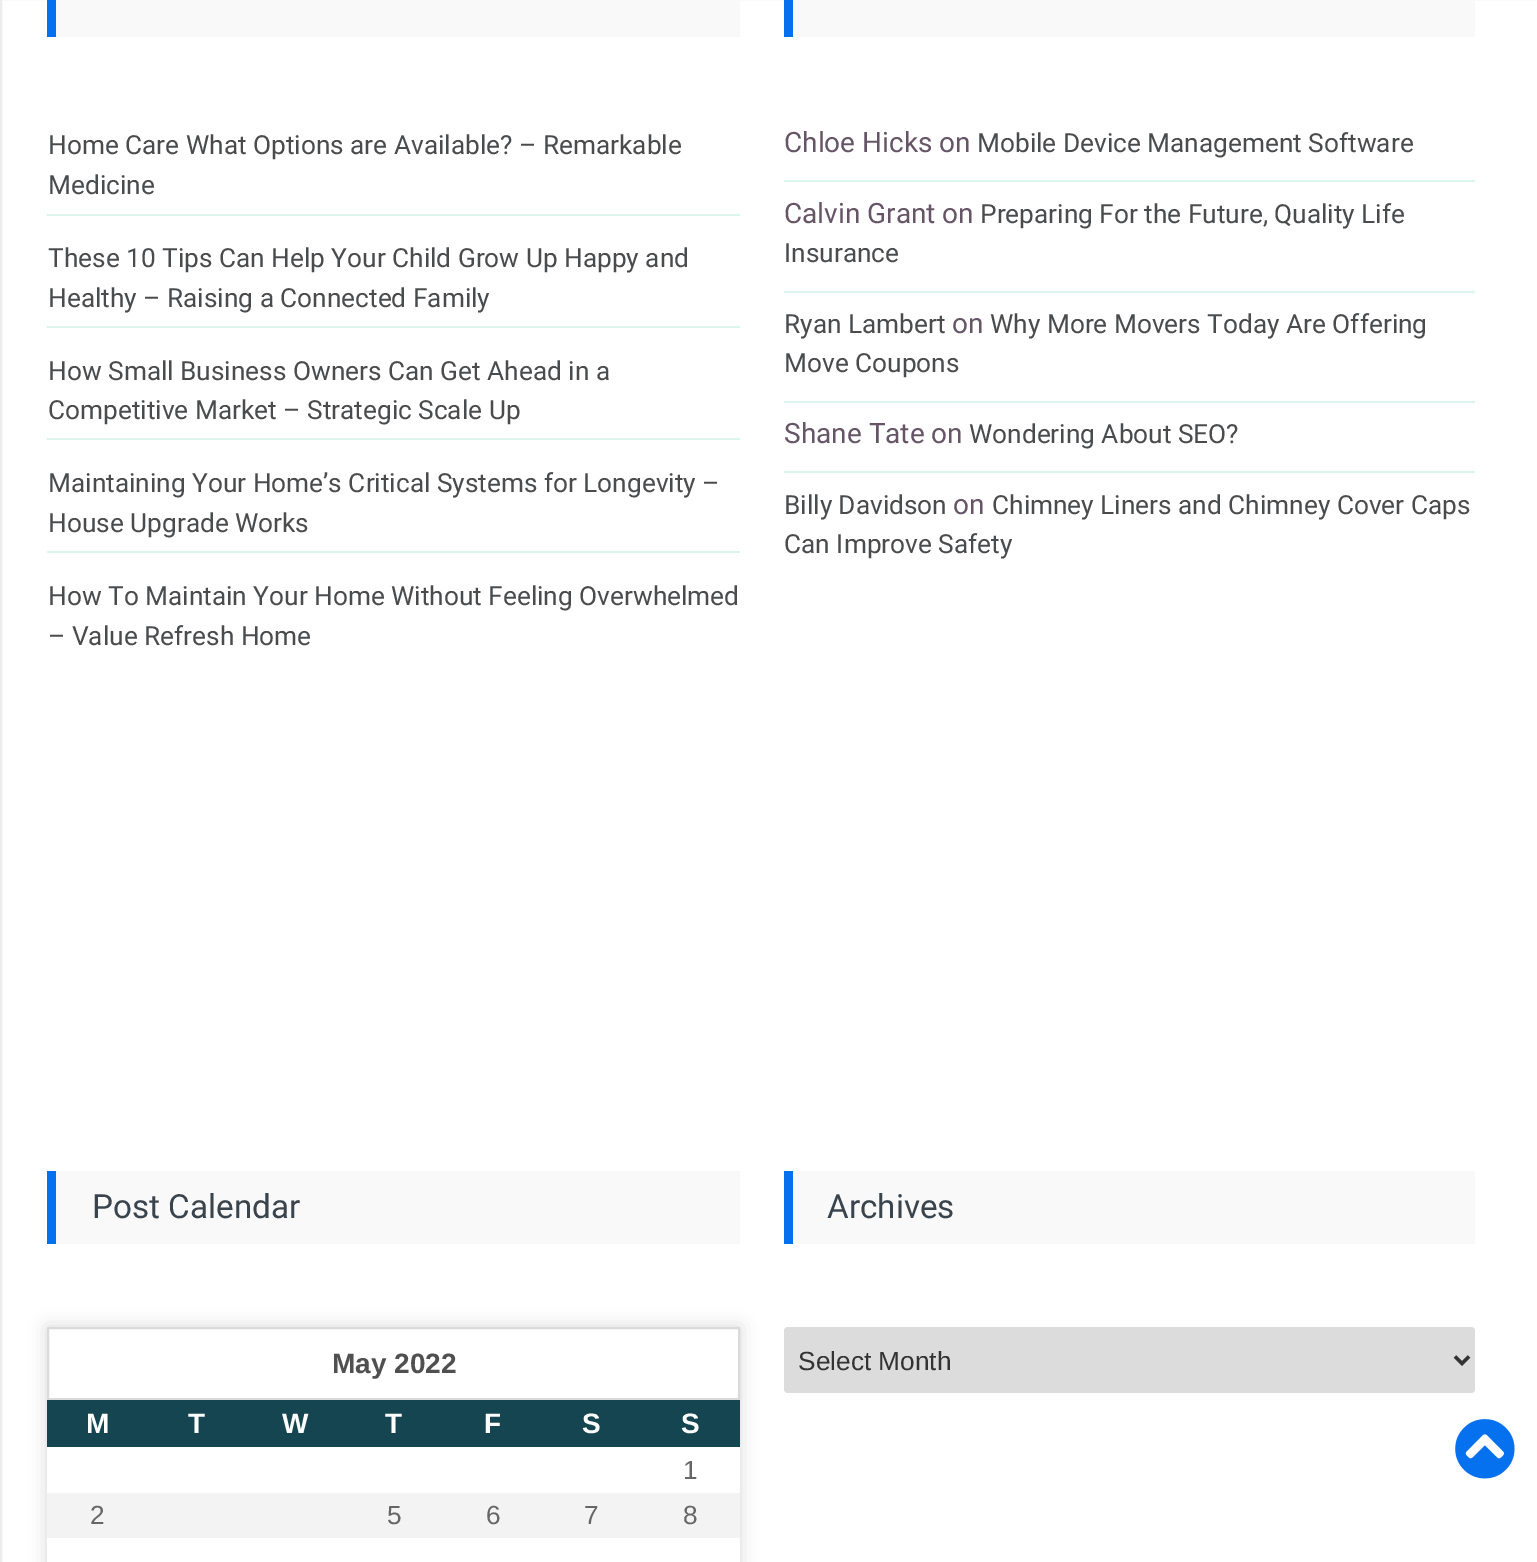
%!PS
<< /PageSize [1537 1562] /PageUsesTransparency true >> setpagedevice
/alpha { dup .setfillconstantalpha .setstrokeconstantalpha } def
/roundrect { 5 dict begin { /r /h /w /y /x } { exch def } forall
  x r add y moveto x w add y 2 copy h add r arct x w add y h add x 1 index r arct
  x y h add x y r arct x y 2 copy exch w add exch r arct closepath end } def
/shadow { 12 dict begin { /a /b /q /h /w /y /x } { exch def } forall gsave /was 0 def
  9 -2 -9 { dup b mul 4 div /e exch def 1 sub .425 mul 2.718 exch exp 1 add a .99 .min exch div /now exch def
    1 1 now sub 1 was sub div sub alpha /was now def
    w h .min e 2 mul add 0 gt { x e sub y e sub w e 2 mul add h e 2 mul add
      q e add b .6 mul add w h .min 2 div e add .min 0 .max roundrect fill } if } for grestore end } def
/picture { 5 dict begin { /h /w /y /x /name } { exch def } forall
  gsave x y translate w h scale
  w h 8 [w 0 0 h 0 0] name (r) file false 3 colorimage grestore end } def
0 .pushpdf14devicefilter
0 1562 translate 1 -1 scale
4 setmiterlimit
1 setgray
0 0 1537 1562 rectfill
0.925 setgray
2 setlinewidth
1 -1 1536 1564 rectstroke
1 setgray
1536 0 1 1562 rectfill
0.976 setgray
56 0 684 37 rectfill
0.024 0.443 0.937 setrgbcolor
47 0 9 37 rectfill
0.859 0.961 0.933 setrgbcolor
47 214 693 2 rectfill
/Roboto-Regular [26.25 0 0 -26.25 0 0] selectfont
0.29 0.294 0.298 setrgbcolor
48 154 moveto (Home Care What Options are Available? – Remarkable) show
48 194 moveto (Medicine) show
0.859 0.961 0.933 setrgbcolor
47 326 693 2 rectfill
0.29 0.294 0.298 setrgbcolor
48 267 moveto (These 10 Tips Can Help Your Child Grow Up Happy and) show
48 307 moveto (Healthy – Raising a Connected Family) show
0.859 0.961 0.933 setrgbcolor
47 438 693 2 rectfill
0.29 0.294 0.298 setrgbcolor
48 380 moveto (How Small Business Owners Can Get Ahead in a) show
48 419 moveto (Competitive Market – Strategic Scale Up) show
0.859 0.961 0.933 setrgbcolor
47 551 693 2 rectfill
0.29 0.294 0.298 setrgbcolor
48 492 moveto (Maintaining Your Home’s Critical Systems for Longevity –) show
48 532 moveto (House Upgrade Works) show
48 605 moveto (How To Maintain Your Home Without Feeling Overwhelmed) show
48 645 moveto (– Value Refresh Home) show
0.976 setgray
793 0 682 37 rectfill
0.024 0.443 0.937 setrgbcolor
784 0 9 37 rectfill
0.859 0.961 0.933 setrgbcolor
784 180 691 2 rectfill
/Roboto-Regular [28 0 0 -28 0 0] selectfont
0.4 0.333 0.4 setrgbcolor
784 152 moveto (Chloe Hicks on) show
/Roboto-Regular [26.25 0 0 -26.25 0 0] selectfont
0.29 0.294 0.298 setrgbcolor
977 152 moveto (Mobile Device Management Software) show
0.859 0.961 0.933 setrgbcolor
784 291 691 2 rectfill
/Roboto-Regular [28 0 0 -28 0 0] selectfont
0.4 0.333 0.4 setrgbcolor
784 223 moveto (Calvin Grant on) show
/Roboto-Regular [26.25 0 0 -26.25 0 0] selectfont
0.29 0.294 0.298 setrgbcolor
980 223 moveto (Preparing For the Future, Quality Life) show
784 262 moveto (Insurance) show
0.859 0.961 0.933 setrgbcolor
784 401 691 2 rectfill
0.29 0.294 0.298 setrgbcolor
784 333 moveto (Ryan Lambert) show
/Roboto-Regular [28 0 0 -28 0 0] selectfont
0.4 0.333 0.4 setrgbcolor
952 333 moveto (on) show
/Roboto-Regular [26.25 0 0 -26.25 0 0] selectfont
0.29 0.294 0.298 setrgbcolor
990 333 moveto (Why More Movers Today Are Offering) show
784 372 moveto (Move Coupons) show
0.859 0.961 0.933 setrgbcolor
784 471 691 2 rectfill
/Roboto-Regular [28 0 0 -28 0 0] selectfont
0.4 0.333 0.4 setrgbcolor
784 443 moveto (Shane Tate on) show
/Roboto-Regular [26.25 0 0 -26.25 0 0] selectfont
0.29 0.294 0.298 setrgbcolor
969 443 moveto (Wondering About SEO?) show
784 514 moveto (Billy Davidson) show
/Roboto-Regular [28 0 0 -28 0 0] selectfont
0.4 0.333 0.4 setrgbcolor
953 514 moveto (on) show
/Roboto-Regular [26.25 0 0 -26.25 0 0] selectfont
0.29 0.294 0.298 setrgbcolor
992 514 moveto (Chimney Liners and Chimney Cover Caps) show
784 553 moveto (Can Improve Safety) show
0.976 setgray
56 1171 684 73 rectfill
0.024 0.443 0.937 setrgbcolor
47 1171 9 73 rectfill
/Roboto-Regular [33.25 0 0 -33.25 0 0] selectfont
0.227 0.267 0.302 setrgbcolor
92 1218 moveto (Post Calendar) show
gsave
newpath 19 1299 moveto 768 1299 lineto 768 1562 lineto 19 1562 lineto closepath 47 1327 moveto 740 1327 lineto 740 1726 lineto 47 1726 lineto closepath eoclip newpath
0 setgray
47 1327 693 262 0 9 0.15 shadow
grestore
0.855 setgray
48 1328 691 71 rectstroke
/LiberationSans-Bold [28 0 0 -28 0 0] selectfont
0.314 setgray
332 1373 moveto (May 2022) show
0.082 0.271 0.314 setrgbcolor
47 1400 693 47 rectfill
1 setgray
86 1433 moveto (M) show
188 1433 moveto (T) show
282 1433 moveto (W) show
385 1433 moveto (T) show
484 1433 moveto (F) show
582 1433 moveto (S) show
681 1433 moveto (S) show
/LiberationSans-Regular [26.25 0 0 -26.25 0 0] selectfont
0.4 setgray
683 1479 moveto (1) show
0.953 setgray
47 1493 693 45 rectfill
0.4 setgray
90 1524 moveto (2) show
387 1524 moveto (5) show
486 1524 moveto (6) show
584 1524 moveto (7) show
683 1524 moveto (8) show
0.976 setgray
793 1171 682 73 rectfill
0.024 0.443 0.937 setrgbcolor
784 1171 9 73 rectfill
/Roboto-Regular [33.25 0 0 -33.25 0 0] selectfont
0.227 0.267 0.302 setrgbcolor
827 1218 moveto (Archives) show
0.863 setgray
784 1327 691 66 4 roundrect fill
0.2 setgray
3.5 setlinewidth
newpath 1455 1356.5 moveto 1462 1363.5 lineto 1469 1356.5 lineto stroke
/LiberationSans-Regular [26.25 0 0 -26.25 0 0] selectfont
798 1370 moveto (Select Month) show
(img1.rgb) 1455 1419 60 60 picture
.poppdf14devicefilter showpage
